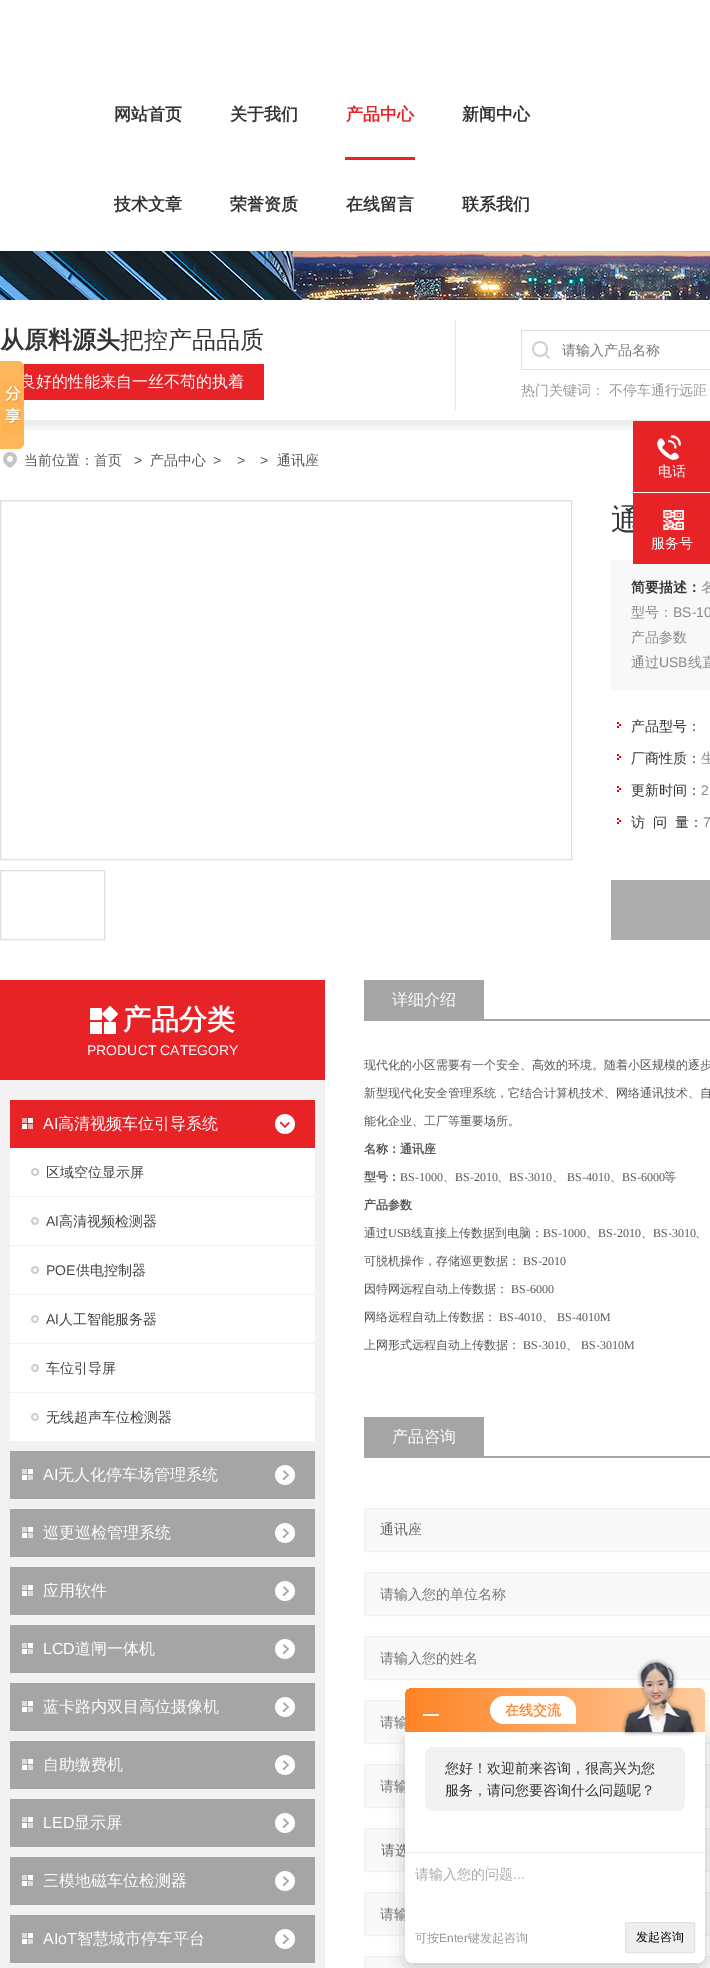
%!PS
<< /PageSize [710 1968] /PageUsesTransparency true >> setpagedevice
/alpha { dup .setfillconstantalpha .setstrokeconstantalpha } def
/roundrect { 5 dict begin { /r /h /w /y /x } { exch def } forall
  x r add y moveto x w add y 2 copy h add r arct x w add y h add x 1 index r arct
  x y h add x y r arct x y 2 copy exch w add exch r arct closepath end } def
/shadow { 12 dict begin { /a /b /q /h /w /y /x } { exch def } forall gsave /was 0 def
  9 -2 -9 { dup b mul 4 div /e exch def 1 sub .425 mul 2.718 exch exp 1 add a .99 .min exch div /now exch def
    1 1 now sub 1 was sub div sub alpha /was now def
    w h .min e 2 mul add 0 gt { x e sub y e sub w e 2 mul add h e 2 mul add
      q e add b .6 mul add w h .min 2 div e add .min 0 .max roundrect fill } if } for grestore end } def
/picture { 5 dict begin { /h /w /y /x /name } { exch def } forall
  gsave x y translate w h scale
  w h 8 [w 0 0 h 0 0] name (r) file false 3 colorimage grestore end } def
0 .pushpdf14devicefilter
0 1968 translate 1 -1 scale
4 setmiterlimit
1 setgray
0 0 710 1968 rectfill
(img1.rgb) 0 251 710 49 picture
0 setgray
0 0 710 251 0 5 0.2 shadow
1 setgray
0 0 710 251 rectfill
/WenQuanYiZenHei-Bold [17 0 0 -17 0 0] selectfont
0.2 setgray
114 120 moveto (网站首页) show
230 120 moveto (关于我们) show
0.906 0.137 0.153 setrgbcolor
346 120 moveto (产品中心) show
345 157 70 3 rectfill
0.2 setgray
462 120 moveto (新闻中心) show
114 210 moveto (技术文章) show
230 210 moveto (荣誉资质) show
346 210 moveto (在线留言) show
462 210 moveto (联系我们) show
gsave
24 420 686 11 rectclip
0 setgray
0 306 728 120 0 6 0.1 shadow
grestore
/WenQuanYiZenHei-Bold [24 0 0 -24 0 0] selectfont
0 348 moveto (从原料源头) show
/WenQuanYiZenHei-Medium [24 0 0 -24 0 0] selectfont
120 348 moveto (把控产品品质) show
0.906 0.137 0.153 setrgbcolor
24 364 240 36 rectfill
/WenQuanYiZenHei-Medium [16 0 0 -16 0 0] selectfont
1 setgray
20 387 moveto (良好的性能来自一丝不苟的执着) show
0.906 setgray
455 320 1 90 rectfill
(img2.rgb) 532 341 18 18 picture
0.871 setgray
521 330 189 1 rectfill
521 369 189 1 rectfill
521 330 1 40 rectfill
/WenQuanYiZenHei-Medium [14 0 0 -14 0 0] selectfont
0.459 setgray
562 355 moveto (请输入产品名称) show
0.6 setgray
521 395 moveto (热门关键词：) show
609 395 moveto (不停车通行远距) show
(img3.rgb) 0 361 24 88 picture
(img4.rgb) 3 452 14 16 picture
0.333 setgray
24 465 moveto (当前位置：首页) show
/LiberationSans-Regular [14 0 0 -14 0 0] selectfont
134 465 moveto (>) show
/WenQuanYiZenHei-Medium [14 0 0 -14 0 0] selectfont
150 465 moveto (产品中心) show
/LiberationSans-Regular [14 0 0 -14 0 0] selectfont
213 465 moveto (>    >    >) show
/WenQuanYiZenHei-Medium [14 0 0 -14 0 0] selectfont
277 465 moveto (通讯座) show
0.906 0.137 0.153 setrgbcolor
633 421 77 71 rectfill
(img5.rgb) 657 435 24 25 picture
1 setgray
658 476 moveto (电话) show
/WenQuanYiZenHei-Medium [30 0 0 -30 0 0] selectfont
0.196 0.208 0.227 setrgbcolor
611 530 moveto (通) show
0.973 setgray
611 560 99 130 rectfill
0.906 0.137 0.153 setrgbcolor
633 493 77 71 rectfill
(img6.rgb) 663 510 21 20 picture
/WenQuanYiZenHei-Medium [14 0 0 -14 0 0] selectfont
1 setgray
651 548 moveto (服务号) show
0.875 setgray
0.5 500.5 571 359 rectstroke
0.5 870.5 104 69 rectstroke
/WenQuanYiZenHei-Bold [14 0 0 -14 0 0] selectfont
0.2 setgray
631 592 moveto (简要描述：) show
/WenQuanYiZenHei-Medium [14 0 0 -14 0 0] selectfont
0.533 setgray
701 592 moveto (名) show
631 617 moveto (型号：) show
/LiberationSans-Regular [14 0 0 -14 0 0] selectfont
673 617 moveto (BS-10) show
/WenQuanYiZenHei-Medium [14 0 0 -14 0 0] selectfont
631 642 moveto (产品参数) show
631 667 moveto (通过) show
/LiberationSans-Regular [14 0 0 -14 0 0] selectfont
659 667 moveto (USB) show
/WenQuanYiZenHei-Medium [14 0 0 -14 0 0] selectfont
688 667 moveto (线直) show
(img7.rgb) 617 722 4 6 picture
0.2 setgray
631 731 moveto (产品型号：) show
(img7.rgb) 617 754 4 6 picture
631 763 moveto (厂商性质：) show
0.533 setgray
701 763 moveto (生) show
(img7.rgb) 617 786 4 6 picture
0.2 setgray
631 795 moveto (更新时间：) show
/LiberationSans-Regular [14 0 0 -14 0 0] selectfont
0.533 setgray
701 795 moveto (2) show
(img7.rgb) 617 818 4 6 picture
/WenQuanYiZenHei-Medium [14 0 0 -14 0 0] selectfont
0.2 setgray
631 827 moveto (访) show
653 827 moveto (问) show
675 827 moveto (量：) show
/LiberationSans-Regular [14 0 0 -14 0 0] selectfont
0.533 setgray
703 827 moveto (7) show
0.678 setgray
611 880 99 60 rectfill
0.906 0.137 0.153 setrgbcolor
0 980 325 100 rectfill
(img8.rgb) 90 1006 28 28 picture
/WenQuanYiZenHei-Bold [28 0 0 -28 0 0] selectfont
1 setgray
123 1029 moveto (产品分类) show
/LiberationSans-Regular [14 0 0 -14 0 0] selectfont
87 1055 moveto (PRODUCT CATEGORY) show
0.949 setgray
0 1080 325 888 rectfill
0.906 0.137 0.153 setrgbcolor
10 1100 305 48 rectfill
(img9.rgb) 22 1118 11 11 picture
/LiberationSans-Regular [16 0 0 -16 0 0] selectfont
1 setgray
43 1129 moveto (AI) show
/WenQuanYiZenHei-Medium [16 0 0 -16 0 0] selectfont
58 1129 moveto (高清视频车位引导系统) show
(img10.rgb) 275 1114 20 20 picture
10 1148 305 48 rectfill
(img11.rgb) 31 1168 8 8 picture
/WenQuanYiZenHei-Medium [14 0 0 -14 0 0] selectfont
0.271 setgray
46 1177 moveto (区域空位显示屏) show
1 setgray
10 1197 305 48 rectfill
(img11.rgb) 31 1217 8 8 picture
/LiberationSans-Regular [14 0 0 -14 0 0] selectfont
0.271 setgray
46 1226 moveto (AI) show
/WenQuanYiZenHei-Medium [14 0 0 -14 0 0] selectfont
59 1226 moveto (高清视频检测器) show
1 setgray
10 1246 305 48 rectfill
(img11.rgb) 31 1266 8 8 picture
/LiberationSans-Regular [14 0 0 -14 0 0] selectfont
0.271 setgray
46 1275 moveto (POE) show
/WenQuanYiZenHei-Medium [14 0 0 -14 0 0] selectfont
76 1275 moveto (供电控制器) show
1 setgray
10 1295 305 48 rectfill
(img11.rgb) 31 1315 8 8 picture
/LiberationSans-Regular [14 0 0 -14 0 0] selectfont
0.271 setgray
46 1324 moveto (AI) show
/WenQuanYiZenHei-Medium [14 0 0 -14 0 0] selectfont
59 1324 moveto (人工智能服务器) show
1 setgray
10 1344 305 48 rectfill
(img11.rgb) 31 1364 8 8 picture
0.271 setgray
46 1373 moveto (车位引导屏) show
1 setgray
10 1393 305 48 rectfill
(img11.rgb) 31 1413 8 8 picture
0.271 setgray
46 1422 moveto (无线超声车位检测器) show
0.647 setgray
10 1451 305 48 rectfill
(img12.rgb) 22 1469 11 11 picture
/LiberationSans-Regular [16 0 0 -16 0 0] selectfont
1 setgray
43 1480 moveto (AI) show
/WenQuanYiZenHei-Medium [16 0 0 -16 0 0] selectfont
58 1480 moveto (无人化停车场管理系统) show
(img13.rgb) 275 1465 20 20 picture
0.647 setgray
10 1509 305 48 rectfill
(img12.rgb) 22 1527 11 11 picture
1 setgray
43 1538 moveto (巡更巡检管理系统) show
(img13.rgb) 275 1523 20 20 picture
0.647 setgray
10 1567 305 48 rectfill
(img12.rgb) 22 1585 11 11 picture
1 setgray
43 1596 moveto (应用软件) show
(img13.rgb) 275 1581 20 20 picture
0.647 setgray
10 1625 305 48 rectfill
(img12.rgb) 22 1643 11 11 picture
/LiberationSans-Regular [16 0 0 -16 0 0] selectfont
1 setgray
43 1654 moveto (LCD) show
/WenQuanYiZenHei-Medium [16 0 0 -16 0 0] selectfont
75 1654 moveto (道闸一体机) show
(img13.rgb) 275 1639 20 20 picture
0.647 setgray
10 1683 305 48 rectfill
(img12.rgb) 22 1701 11 11 picture
1 setgray
43 1712 moveto (蓝卡路内双目高位摄像机) show
(img13.rgb) 275 1697 20 20 picture
0.647 setgray
10 1741 305 48 rectfill
(img12.rgb) 22 1759 11 11 picture
1 setgray
43 1770 moveto (自助缴费机) show
(img13.rgb) 275 1755 20 20 picture
0.647 setgray
10 1799 305 48 rectfill
(img12.rgb) 22 1817 11 11 picture
/LiberationSans-Regular [16 0 0 -16 0 0] selectfont
1 setgray
43 1828 moveto (LED) show
/WenQuanYiZenHei-Medium [16 0 0 -16 0 0] selectfont
74 1828 moveto (显示屏) show
(img13.rgb) 275 1813 20 20 picture
0.647 setgray
10 1857 305 48 rectfill
(img12.rgb) 22 1875 11 11 picture
1 setgray
43 1886 moveto (三模地磁车位检测器) show
(img13.rgb) 275 1871 20 20 picture
0.647 setgray
10 1915 305 48 rectfill
(img12.rgb) 22 1933 11 11 picture
/LiberationSans-Regular [16 0 0 -16 0 0] selectfont
1 setgray
43 1944 moveto (AIoT) show
/WenQuanYiZenHei-Medium [16 0 0 -16 0 0] selectfont
77 1944 moveto (智慧城市停车平台) show
(img13.rgb) 275 1929 20 20 picture
0.647 setgray
364 1019 346 2 rectfill
364 980 120 39 rectfill
1 setgray
392 1005 moveto (详细介绍) show
/WenQuanYiZenHei-Medium [12 0 0 -12 0 0] selectfont
0.333 setgray
364 1069 moveto (现代化的小区需要有一个安全、高效的环境。随着小区规模的逐步) show
364 1097 moveto (新型现代化安全管理系统，它结合计算机技术、网络通讯技术、自) show
364 1125 moveto (能化企业、工厂等重要场所。) show
/WenQuanYiZenHei-Bold [12 0 0 -12 0 0] selectfont
364 1153 moveto (名称：通讯座) show
364 1181 moveto (型号：) show
/LiberationSerif-Regular [12 0 0 -12 0 0] selectfont
400 1181 moveto (BS-1000) show
/WenQuanYiZenHei-Medium [12 0 0 -12 0 0] selectfont
443 1181 moveto (、) show
/LiberationSerif-Regular [12 0 0 -12 0 0] selectfont
455 1181 moveto (BS-2010) show
/WenQuanYiZenHei-Medium [12 0 0 -12 0 0] selectfont
497 1181 moveto (、) show
/LiberationSerif-Regular [12 0 0 -12 0 0] selectfont
509 1181 moveto (BS-3010) show
/WenQuanYiZenHei-Medium [12 0 0 -12 0 0] selectfont
552 1181 moveto (、) show
/LiberationSerif-Regular [12 0 0 -12 0 0] selectfont
567 1181 moveto (BS-4010) show
/WenQuanYiZenHei-Medium [12 0 0 -12 0 0] selectfont
610 1181 moveto (、) show
/LiberationSerif-Regular [12 0 0 -12 0 0] selectfont
622 1181 moveto (BS-6000) show
/WenQuanYiZenHei-Medium [12 0 0 -12 0 0] selectfont
664 1181 moveto (等) show
/WenQuanYiZenHei-Bold [12 0 0 -12 0 0] selectfont
364 1209 moveto (产品参数) show
/WenQuanYiZenHei-Medium [12 0 0 -12 0 0] selectfont
364 1237 moveto (通过) show
/LiberationSerif-Regular [12 0 0 -12 0 0] selectfont
388 1237 moveto (USB) show
/WenQuanYiZenHei-Medium [12 0 0 -12 0 0] selectfont
411 1237 moveto (线直接上传数据到电脑：) show
/LiberationSerif-Regular [12 0 0 -12 0 0] selectfont
543 1237 moveto (BS-1000) show
/WenQuanYiZenHei-Medium [12 0 0 -12 0 0] selectfont
586 1237 moveto (、) show
/LiberationSerif-Regular [12 0 0 -12 0 0] selectfont
598 1237 moveto (BS-2010) show
/WenQuanYiZenHei-Medium [12 0 0 -12 0 0] selectfont
641 1237 moveto (、) show
/LiberationSerif-Regular [12 0 0 -12 0 0] selectfont
653 1237 moveto (BS-3010) show
/WenQuanYiZenHei-Medium [12 0 0 -12 0 0] selectfont
695 1237 moveto (、) show
364 1265 moveto (可脱机操作，存储巡更数据：) show
/LiberationSerif-Regular [12 0 0 -12 0 0] selectfont
523 1265 moveto (BS-2010) show
/WenQuanYiZenHei-Medium [12 0 0 -12 0 0] selectfont
364 1293 moveto (因特网远程自动上传数据：) show
/LiberationSerif-Regular [12 0 0 -12 0 0] selectfont
511 1293 moveto (BS-6000) show
/WenQuanYiZenHei-Medium [12 0 0 -12 0 0] selectfont
364 1321 moveto (网络远程自动上传数据：) show
/LiberationSerif-Regular [12 0 0 -12 0 0] selectfont
499 1321 moveto (BS-4010) show
/WenQuanYiZenHei-Medium [12 0 0 -12 0 0] selectfont
542 1321 moveto (、) show
/LiberationSerif-Regular [12 0 0 -12 0 0] selectfont
557 1321 moveto (BS-4010M) show
/WenQuanYiZenHei-Medium [12 0 0 -12 0 0] selectfont
364 1349 moveto (上网形式远程自动上传数据：) show
/LiberationSerif-Regular [12 0 0 -12 0 0] selectfont
523 1349 moveto (BS-3010) show
/WenQuanYiZenHei-Medium [12 0 0 -12 0 0] selectfont
566 1349 moveto (、) show
/LiberationSerif-Regular [12 0 0 -12 0 0] selectfont
581 1349 moveto (BS-3010M) show
0.647 setgray
364 1456 346 2 rectfill
364 1417 120 39 rectfill
/WenQuanYiZenHei-Medium [16 0 0 -16 0 0] selectfont
1 setgray
392 1442 moveto (产品咨询) show
0.973 setgray
newpath 364.5 1508.5 moveto 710.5 1508.5 lineto 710.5 1551.5 lineto 364.5 1551.5 lineto closepath gsave fill grestore
0.945 setgray
stroke
/WenQuanYiZenHei-Medium [14 0 0 -14 0 0] selectfont
0.4 setgray
380 1534 moveto (通讯座) show
0.973 setgray
newpath 364.5 1572.5 moveto 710.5 1572.5 lineto 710.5 1615.5 lineto 364.5 1615.5 lineto closepath gsave fill grestore
0.945 setgray
stroke
0.459 setgray
380 1599 moveto (请输入您的单位名称) show
0.973 setgray
newpath 364.5 1636.5 moveto 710.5 1636.5 lineto 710.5 1679.5 lineto 364.5 1679.5 lineto closepath gsave fill grestore
0.945 setgray
stroke
0.459 setgray
380 1663 moveto (请输入您的姓名) show
0.973 setgray
newpath 364.5 1700.5 moveto 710.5 1700.5 lineto 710.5 1743.5 lineto 364.5 1743.5 lineto closepath gsave fill grestore
0.945 setgray
stroke
0.459 setgray
380 1727 moveto (请输) show
0.973 setgray
newpath 364.5 1764.5 moveto 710.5 1764.5 lineto 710.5 1807.5 lineto 364.5 1807.5 lineto closepath gsave fill grestore
0.945 setgray
stroke
0.459 setgray
380 1791 moveto (请输) show
0.973 setgray
newpath 364.5 1828.5 moveto 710.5 1828.5 lineto 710.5 1871.5 lineto 364.5 1871.5 lineto closepath gsave fill grestore
0.945 setgray
stroke
0.4 setgray
381 1855 moveto (请选) show
0.973 setgray
newpath 364.5 1892.5 moveto 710.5 1892.5 lineto 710.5 1935.5 lineto 364.5 1935.5 lineto closepath gsave fill grestore
0.945 setgray
stroke
0.459 setgray
380 1919 moveto (请输) show
0.973 setgray
newpath 364.5 1956.5 moveto 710.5 1956.5 lineto 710.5 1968.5 lineto 364.5 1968.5 lineto closepath gsave fill grestore
0.945 setgray
stroke
0 setgray
405 1736 300 231 8 8 0.2 shadow
gsave newpath 413 1688 moveto 697 1688 lineto 701.5 1688 705 1691.5 705 1696 curveto 705 1732 lineto 405 1732 lineto 405 1696 lineto 405 1691.5 408.5 1688 413 1688 curveto closepath clip newpath
<< /ShadingType 2 /ColorSpace /DeviceRGB /Coords [405 1710 705 1710] /Extend [true true] /Function << /FunctionType 2 /Domain [0 1] /C0 [1 0.514 0.141] /C1 [0.996 0.796 0.612] /N 1 >> >> shfill grestore
1 setgray
423 1714 16 2 rectfill
newpath 504 1696 moveto 562 1696 lineto 569.5 1696 576 1702.5 576 1710 curveto 576 1724 lineto 504 1724 lineto 496.5 1724 490 1717.5 490 1710 curveto 490 1702.5 496.5 1696 504 1696 curveto closepath fill
/WenQuanYiZenHei-Bold [14 0 0 -14 0 0] selectfont
0.984 0.545 0.212 setrgbcolor
505 1715 moveto (在线交流) show
1 setgray
newpath 405 1732 moveto 705 1732 lineto 705 1955 lineto 705 1959.5 701.5 1963 697 1963 curveto 413 1963 lineto 408.5 1963 405 1959.5 405 1955 curveto closepath fill
(img14.rgb) 621 1658 76 78 picture
0.949 setgray
425 1747 260 64 8 roundrect fill
/WenQuanYiZenHei-Medium [14 0 0 -14 0 0] selectfont
0.2 setgray
445 1773 moveto (您好！欢迎前来咨询，很高兴为您) show
445 1795 moveto (服务，请问您要咨询什么问题呢？) show
0.918 setgray
405 1852 300 1 rectfill
0.667 setgray
415 1879 moveto (请输入您的问题) show
/LiberationSans-Regular [14 0 0 -14 0 0] selectfont
513 1879 moveto (...) show
/WenQuanYiZenHei-Medium [12 0 0 -12 0 0] selectfont
0.6 setgray
415 1942 moveto (可按) show
/LiberationSans-Regular [12 0 0 -12 0 0] selectfont
439 1942 moveto (Enter) show
/WenQuanYiZenHei-Medium [12 0 0 -12 0 0] selectfont
468 1942 moveto (键发起咨询) show
0.941 0.937 0.929 setrgbcolor
625.5 1922.5 69 30 1.5 roundrect gsave fill grestore
0.886 setgray
stroke
0 setgray
636 1941 moveto (发起咨询) show
.poppdf14devicefilter showpage
